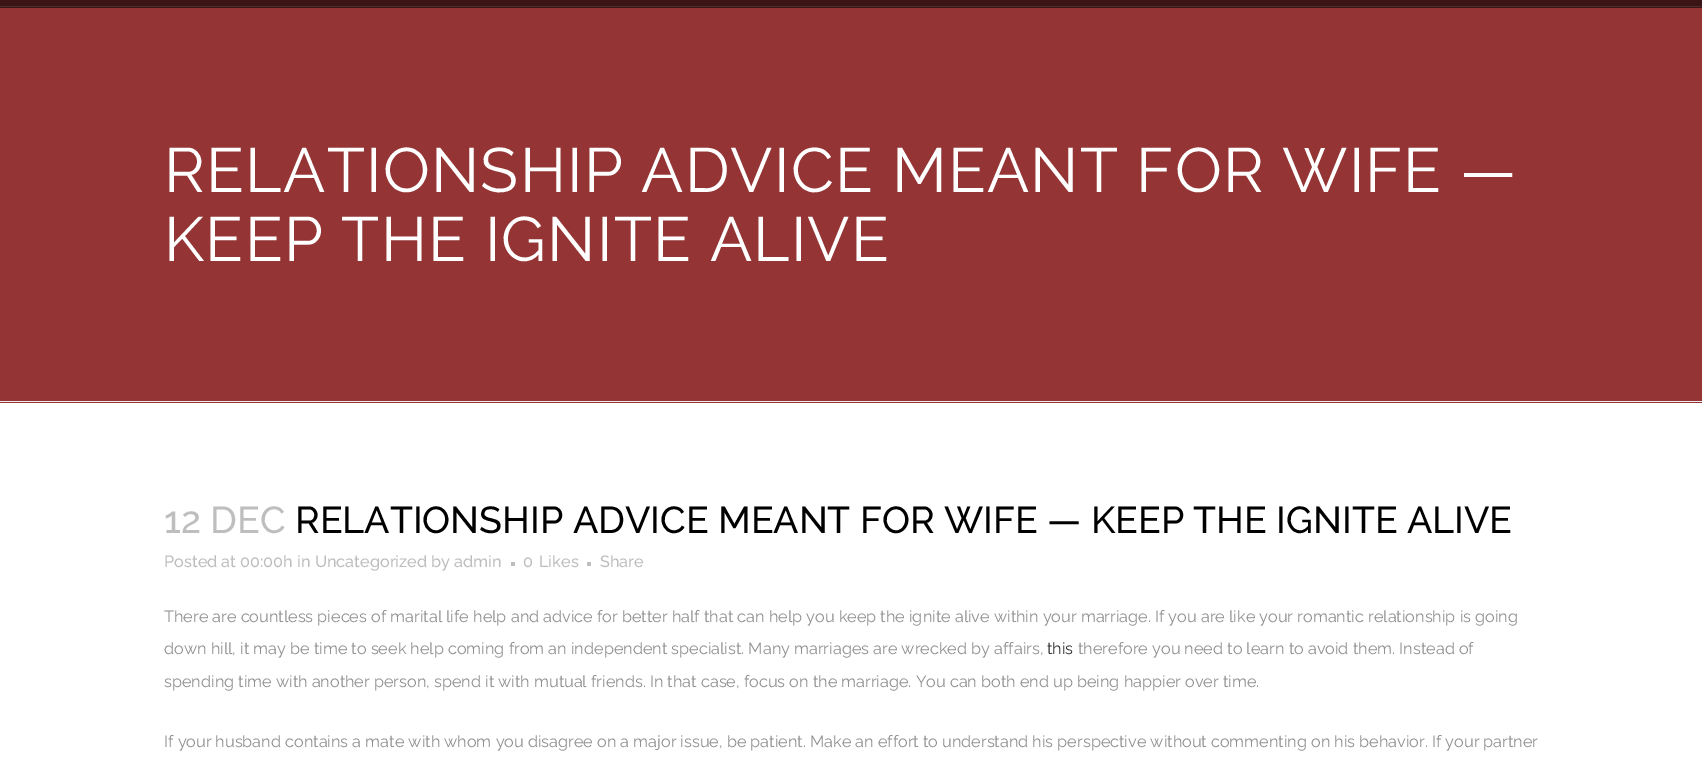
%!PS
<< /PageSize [1702 767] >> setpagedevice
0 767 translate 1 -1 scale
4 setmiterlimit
1 setgray
0 0 1702 767 rectfill
0.231 0.082 0.082 setrgbcolor
0 0 1702 8 rectfill
0.302 0.18 0.18 setrgbcolor
0 6 1702 1 rectfill
0.58 0.204 0.204 setrgbcolor
0 8 1702 395 rectfill
0.933 setgray
0 401 1702 1 rectfill
/Raleway-Regular [62.5 0 0 -62.5 0 0] selectfont
1 setgray
164 192 moveto 1.25 0 (RELATIONSHIP ADVICE MEANT FOR WIFE —) ashow
164 261 moveto 1.25 0 (KEEP THE IGNITE ALIVE) ashow
/Raleway-Medium [37.5 0 0 -37.5 0 0] selectfont
0.745 setgray
164 533 moveto (12 DEC) show
0 setgray
295 533 moveto (RELATIONSHIP ADVICE MEANT FOR WIFE — KEEP THE IGNITE ALIVE) show
/Raleway-Medium [16.25 0 0 -16.25 0 0] selectfont
0.745 setgray
164 567 moveto (Posted at 00:00h in Uncategorized by admin) show
511 562 4 4 rectfill
523 567 moveto (0) show
539 567 moveto (Likes) show
587 562 4 4 rectfill
600 567 moveto (Share) show
/Raleway-Regular [16.25 0 0 -16.25 0 0] selectfont
0.565 setgray
164 622 moveto (There are countless pieces of marital life help and advice for better half that can help you keep the ignite alive within your marriage. If you are like your romantic relationship is going) show
164 654 moveto (down hill, it may be time to seek help coming from an independent specialist. Many marriages are wrecked by affairs,) show
0.188 setgray
1047 654 moveto (this) show
0.565 setgray
1078 654 moveto (therefore you need to learn to avoid them. Instead of) show
164 687 moveto (spending time with another person, spend it with mutual friends. In that case, focus on the marriage. You can both end up being happier over time.) show
164 747 moveto (If your husband contains a mate with whom you disagree on a major issue, be patient. Make an effort to understand his perspective without commenting on his behavior. If your partner) show
showpage
